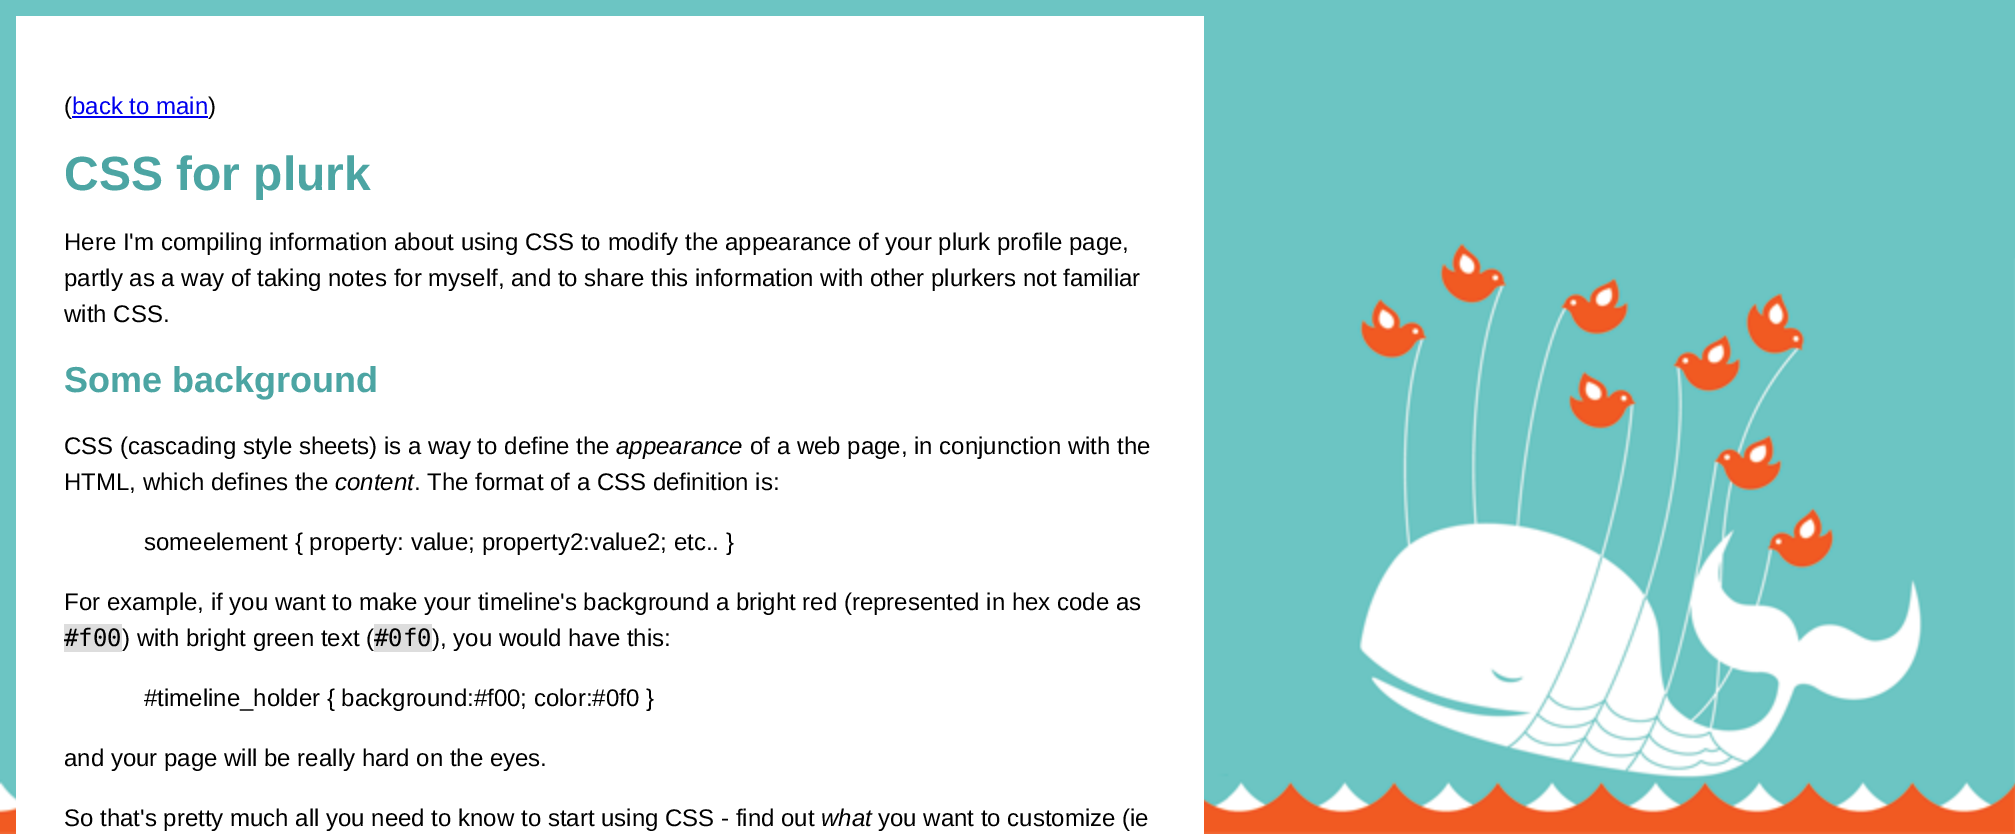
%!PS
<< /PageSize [2015 834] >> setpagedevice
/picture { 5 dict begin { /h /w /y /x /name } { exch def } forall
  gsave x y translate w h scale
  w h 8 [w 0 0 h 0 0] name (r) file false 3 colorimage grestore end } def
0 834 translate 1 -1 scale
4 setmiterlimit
0.424 0.773 0.765 setrgbcolor
0 0 2015 834 rectfill
(img1.rgb) 0 242 2015 592 picture
1 setgray
16 16 1188 818 rectfill
/LiberationSans-Regular [24 0 0 -24 0 0] selectfont
0 setgray
64 114 moveto (\() show
0 0 0.933 setrgbcolor
72 114 moveto (back to main) show
72 116 136 2 rectfill
0 setgray
208 114 moveto (\)) show
/LiberationSans-Bold [48 0 0 -48 0 0] selectfont
0.298 0.647 0.639 setrgbcolor
64 190 moveto (CSS for plurk) show
/LiberationSans-Regular [24 0 0 -24 0 0] selectfont
0 setgray
64 250 moveto (Here I'm compiling information about using CSS to modify the appearance of your plurk profile page,) show
64 286 moveto (partly as a way of taking notes for myself, and to share this information with other plurkers not familiar) show
64 322 moveto (with CSS.) show
/LiberationSans-Bold [36 0 0 -36 0 0] selectfont
0.298 0.647 0.639 setrgbcolor
64 392 moveto (Some background) show
/LiberationSans-Regular [24 0 0 -24 0 0] selectfont
0 setgray
64 454 moveto (CSS \(cascading style sheets\) is a way to define the) show
/LiberationSans-Italic [24 0 0 -24 0 0] selectfont
616 454 moveto (appearance) show
/LiberationSans-Regular [24 0 0 -24 0 0] selectfont
750 454 moveto (of a web page, in conjunction with the) show
64 490 moveto (HTML, which defines the) show
/LiberationSans-Italic [24 0 0 -24 0 0] selectfont
335 490 moveto (content) show
/LiberationSans-Regular [24 0 0 -24 0 0] selectfont
414 490 moveto (. The format of a CSS definition is:) show
144 550 moveto (someelement { property: value; property2:value2; etc.. }) show
64 610 moveto (For example, if you want to make your timeline's background a bright red \(represented in hex code as) show
0.867 setgray
64 624 58 28 rectfill
/DejaVuSansMono-Regular [24 0 0 -24 0 0] selectfont
0 setgray
64 646 moveto (#f00) show
/LiberationSans-Regular [24 0 0 -24 0 0] selectfont
122 646 moveto (\) with bright green text \() show
0.867 setgray
374 624 58 28 rectfill
/DejaVuSansMono-Regular [24 0 0 -24 0 0] selectfont
0 setgray
374 646 moveto (#0f0) show
/LiberationSans-Regular [24 0 0 -24 0 0] selectfont
432 646 moveto (\), you would have this:) show
144 706 moveto (#timeline_holder { background:#f00; color:#0f0 }) show
64 766 moveto (and your page will be really hard on the eyes.) show
64 826 moveto (So that's pretty much all you need to know to start using CSS - find out) show
/LiberationSans-Italic [24 0 0 -24 0 0] selectfont
821 826 moveto (what) show
/LiberationSans-Regular [24 0 0 -24 0 0] selectfont
878 826 moveto (you want to customize \(ie) show
showpage
